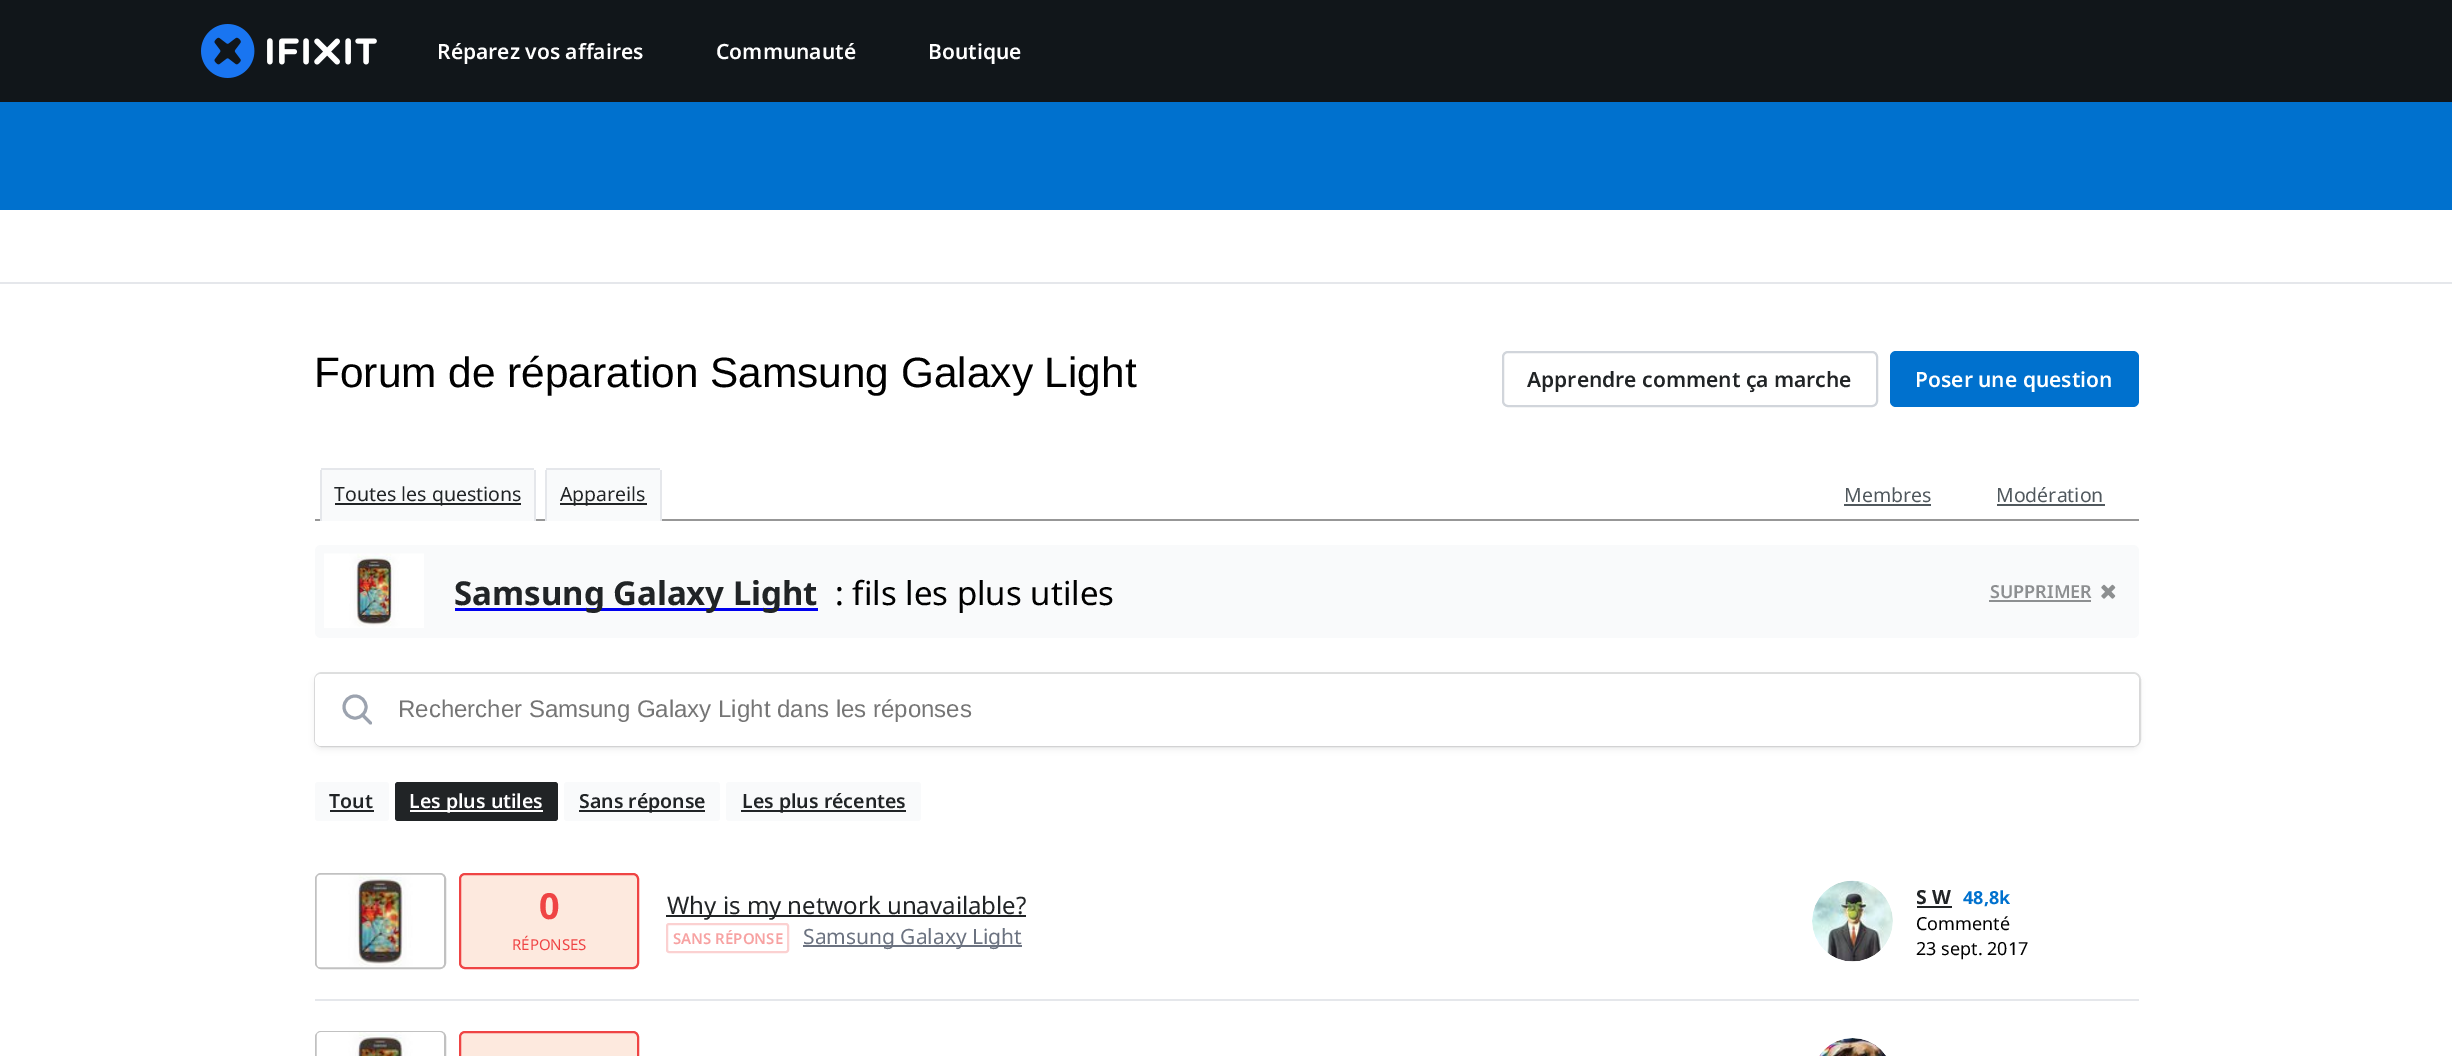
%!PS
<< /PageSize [2452 1056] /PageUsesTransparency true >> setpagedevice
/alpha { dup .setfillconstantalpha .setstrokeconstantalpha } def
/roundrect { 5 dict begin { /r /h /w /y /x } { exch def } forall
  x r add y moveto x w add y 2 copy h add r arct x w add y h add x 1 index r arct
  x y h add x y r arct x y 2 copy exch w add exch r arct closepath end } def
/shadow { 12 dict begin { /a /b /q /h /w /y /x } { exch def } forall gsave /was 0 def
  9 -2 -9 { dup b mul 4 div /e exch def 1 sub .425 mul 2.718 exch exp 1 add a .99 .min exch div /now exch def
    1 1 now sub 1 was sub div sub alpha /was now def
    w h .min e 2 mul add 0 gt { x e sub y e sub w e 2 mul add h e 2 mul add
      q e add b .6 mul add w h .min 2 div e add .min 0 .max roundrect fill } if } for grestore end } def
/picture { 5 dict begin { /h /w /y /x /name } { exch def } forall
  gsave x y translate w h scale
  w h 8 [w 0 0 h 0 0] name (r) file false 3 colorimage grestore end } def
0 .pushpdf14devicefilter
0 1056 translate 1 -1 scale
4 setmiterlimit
1 setgray
0 0 2452 1056 rectfill
0.067 0.086 0.102 setrgbcolor
0 0 2452 102 rectfill
(img1.rgb) 201 24 176 54 picture
/NotoSans-SemiBold [21 0 0 -21 0 0] selectfont
1 setgray
437 59 moveto (Réparez vos affaires) show
716 59 moveto (Communauté) show
928 59 moveto (Boutique) show
0 0.443 0.808 setrgbcolor
0 102 2452 108 rectfill
0.898 0.906 0.922 setrgbcolor
0 282 2452 2 rectfill
/LiberationSans-Regular [42.4 0 0 -42.4 0 0] selectfont
0 setgray
314 387 moveto (Forum de réparation Samsung Galaxy Light) show
0.82 0.835 0.859 setrgbcolor
2 setlinewidth
1503 352 374 54 5 roundrect stroke
/NotoSans-SemiBold [21 0 0 -21 0 0] selectfont
0.129 0.141 0.149 setrgbcolor
1527 387 moveto (Apprendre comment ça marche) show
0 0.443 0.808 setrgbcolor
1890 351 249 56 6 roundrect fill
1 setgray
1915 387 moveto (Poser une question) show
0.592 setgray
315 519 1824 2 rectfill
0.976 0.98 0.984 setrgbcolor
newpath 322.5 470 moveto 532.5 470 lineto 533.5 470 534 470.5 534 471.5 curveto 534 521 lineto 321 521 lineto 321 471.5 lineto 321 470.5 321.5 470 322.5 470 curveto closepath fill
0.898 0.906 0.922 setrgbcolor
321 468 213 2 rectfill
534 470 2 51 rectfill
320 470 2 51 rectfill
0.129 0.141 0.149 setrgbcolor
335 503 186 2 rectfill
/NotoSans-Regular [19.5 0 0 -19.5 0 0] selectfont
334 501 moveto (Toutes les questions) show
0.976 0.98 0.984 setrgbcolor
newpath 547.5 470 moveto 658.5 470 lineto 659.5 470 660 470.5 660 471.5 curveto 660 521 lineto 546 521 lineto 546 471.5 lineto 546 470.5 546.5 470 547.5 470 curveto closepath fill
0.898 0.906 0.922 setrgbcolor
546 468 114 2 rectfill
660 470 2 51 rectfill
545 470 2 51 rectfill
0.129 0.141 0.149 setrgbcolor
560 503 87 2 rectfill
560 501 moveto (Appareils) show
0.314 0.345 0.365 setrgbcolor
1844 502 moveto (Membres) show
1844 504 87 2 rectfill
1996 502 moveto (Modération) show
1997 504 108 2 rectfill
0.976 0.98 0.984 setrgbcolor
315 545 1824 93 6 roundrect fill
(img2.rgb) 324 553 100 75 picture
0 0 0.933 setrgbcolor
455 608 363 3 rectfill
/NotoSans-Bold [33 0 0 -33 0 0] selectfont
0.129 0.141 0.149 setrgbcolor
454 605 moveto (Samsung Galaxy Light) show
/NotoSans-Regular [33 0 0 -33 0 0] selectfont
0 setgray
835 605 moveto (: fils les plus utiles) show
/NotoSans-SemiBold [18 0 0 -18 0 0] selectfont
0.553 0.561 0.569 setrgbcolor
1990 598 moveto (SUPPRIMER) show
1989 600 102 2 rectfill
(img3.rgb) 2101 584 15 15 picture
0 0.012 0.024 setrgbcolor
315 677 1824 72 6 3 0.07 shadow
0.12 alpha
315 673 1825 73 7 roundrect stroke
1 alpha
1 setgray
315 674 1824 72 6 roundrect fill
0.612 0.639 0.686 setrgbcolor
3 setlinewidth
newpath 355 707 11 0 360 arc closepath stroke
1 setlinecap
1 setlinejoin
newpath 370.5 723 moveto 362.5 715 lineto stroke
/LiberationSans-Regular [24 0 0 -24 0 0] selectfont
0.459 setgray
398 717 moveto (Rechercher Samsung Galaxy Light dans les réponses) show
0.976 0.98 0.984 setrgbcolor
315 782 74 39 3 roundrect fill
/NotoSans-SemiBold [19.5 0 0 -19.5 0 0] selectfont
0.129 0.141 0.149 setrgbcolor
329 808 moveto (Tout) show
330 810 44 2 rectfill
395 782 163 39 3 roundrect fill
1 setgray
410 810 133 2 rectfill
409 808 moveto (Les plus utiles) show
0.976 0.98 0.984 setrgbcolor
564 782 156 39 3 roundrect fill
0.129 0.141 0.149 setrgbcolor
579 810 126 2 rectfill
579 808 moveto (Sans réponse) show
0.976 0.98 0.984 setrgbcolor
726 782 195 39 3 roundrect fill
0.129 0.141 0.149 setrgbcolor
741 810 165 2 rectfill
742 808 moveto (Les plus récentes) show
0.898 0.906 0.922 setrgbcolor
315 999 1824 2 rectfill
0.757 setgray
2 setlinewidth
0 setlinecap
0 setlinejoin
316 874 129 94 5 roundrect stroke
(img4.rgb) 316 874 128 94 picture
0.992 0.914 0.871 setrgbcolor
460 874 178 94 5 roundrect gsave fill grestore
0.937 0.267 0.267 setrgbcolor
stroke
/NotoSans-Bold [36 0 0 -36 0 0] selectfont
539 919 moveto (0) show
/NotoSans-Regular [15 0 0 -15 0 0] selectfont
512 950 moveto (RÉPONSES) show
0.129 0.141 0.149 setrgbcolor
666 915 360 2 rectfill
/NotoSans-Regular [24 0 0 -24 0 0] selectfont
667 914 moveto (Why is my network unavailable?) show
0.984 0.82 0.82 setrgbcolor
667 924 121 28 2 roundrect stroke
/NotoSans-SemiBold [15 0 0 -15 0 0] selectfont
0.969 0.635 0.635 setrgbcolor
673 944 moveto (SANS RÉPONSE) show
0.42 0.447 0.502 setrgbcolor
803 945 219 2 rectfill
/NotoSans-Regular [21 0 0 -21 0 0] selectfont
803 944 moveto (Samsung Galaxy Light) show
(img5.rgb) 1812 880 81 82 picture
/NotoSans-Bold [19.5 0 0 -19.5 0 0] selectfont
0.129 0.141 0.149 setrgbcolor
1916 904 moveto (S W) show
1917 906 35 2 rectfill
/NotoSans-Bold [18 0 0 -18 0 0] selectfont
0 0.443 0.808 setrgbcolor
1963 904 moveto (48,8k) show
/NotoSans-Regular [18 0 0 -18 0 0] selectfont
0 setgray
1916 930 moveto (Commenté) show
1916 955 moveto (23 sept. 2017) show
0.757 setgray
316 1032 129 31 5 roundrect stroke
(img6.rgb) 316 1032 128 24 picture
0.992 0.914 0.871 setrgbcolor
460 1032 178 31 5 roundrect gsave fill grestore
0.937 0.267 0.267 setrgbcolor
stroke
(img7.rgb) 1819 1038 67 18 picture
.poppdf14devicefilter showpage
